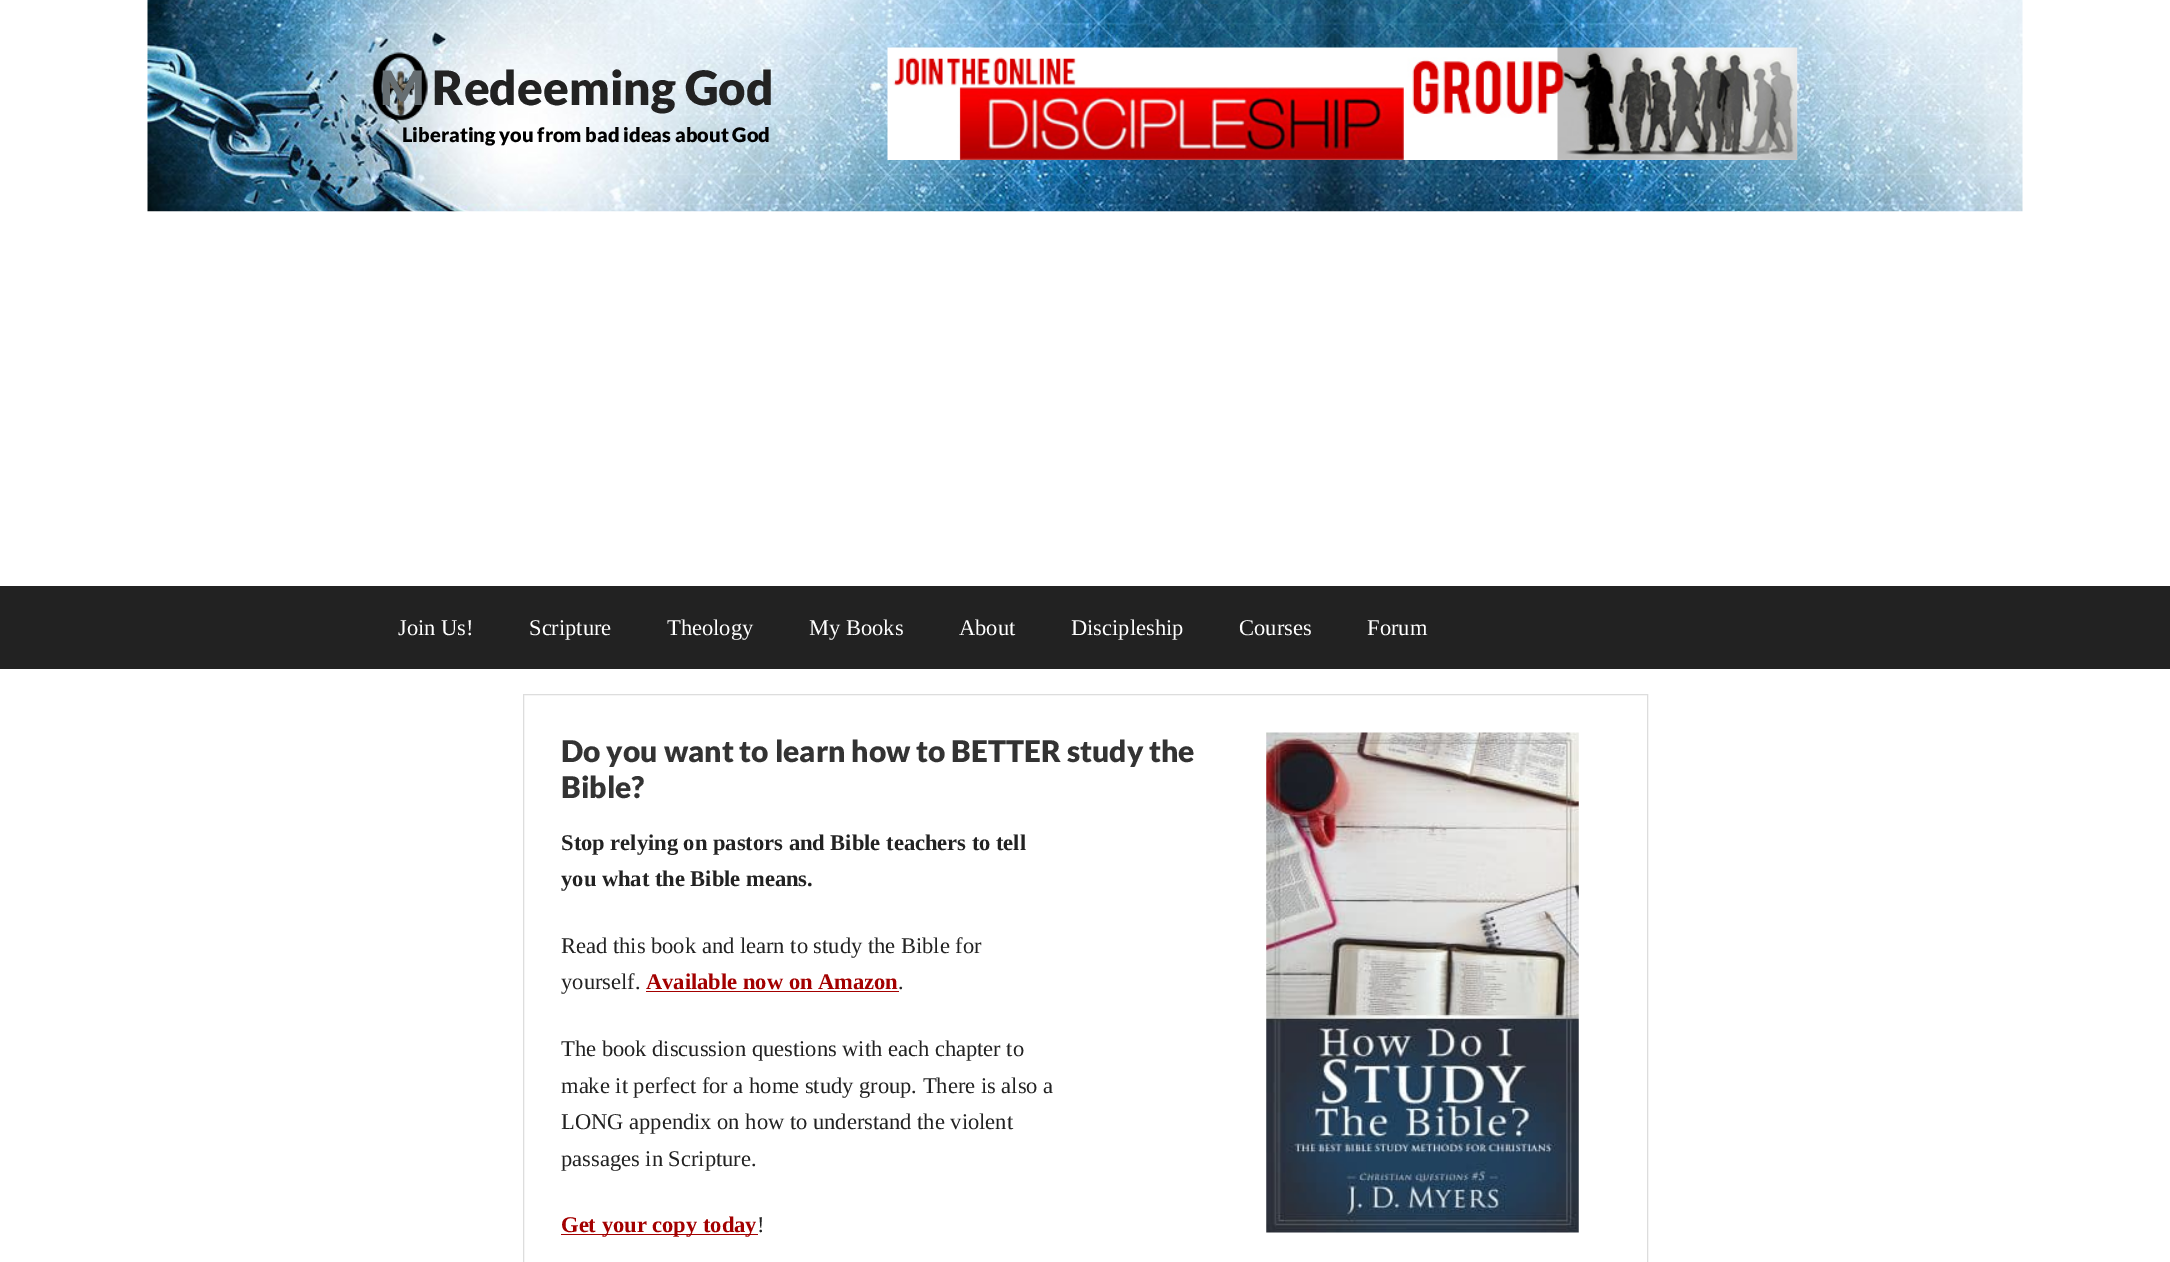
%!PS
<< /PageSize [2170 1262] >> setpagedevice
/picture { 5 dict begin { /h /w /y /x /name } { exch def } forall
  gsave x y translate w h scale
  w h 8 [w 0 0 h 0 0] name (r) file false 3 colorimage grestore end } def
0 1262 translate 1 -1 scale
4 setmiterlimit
1 setgray
0 0 2170 1262 rectfill
(img1.rgb) 147 0 1876 212 picture
(img2.rgb) 372 52 56 69 picture
/Lato-Black [47.5 0 0 -47.5 0 0] selectfont
0.133 setgray
432 105 moveto (Redeeming God) show
0.4 0.431 0.447 setrgbcolor
380 105 moveto (M) show
/Lato-Black [20 0 0 -20 0 0] selectfont
0 setgray
402 142 moveto (Liberating you from bad ideas about God) show
(img3.rgb) 887 47 911 113 picture
0.133 setgray
0 586 2170 83 rectfill
/LiberationSerif-Regular [22.5 0 0 -22.5 0 0] selectfont
1 setgray
398 635 moveto (Join Us!) show
529 635 moveto (Scripture) show
667 635 moveto (Theology) show
809 635 moveto (My Books) show
959 635 moveto (About) show
1071 635 moveto (Discipleship) show
1239 635 moveto (Courses) show
1367 635 moveto (Forum) show
0.867 setgray
523.5 694.5 1124 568 rectstroke
/Lato-Black [30 0 0 -30 0 0] selectfont
0.2 setgray
561 762 moveto (Do you want to learn how to BETTER study the) show
561 798 moveto (Bible?) show
(img4.rgb) 1266 732 313 501 picture
/LiberationSerif-Bold [22.5 0 0 -22.5 0 0] selectfont
0.133 setgray
561 850 moveto (Stop relying on pastors and Bible teachers to tell) show
561 886 moveto (you what the Bible means.) show
/LiberationSerif-Regular [22.5 0 0 -22.5 0 0] selectfont
561 953 moveto (Read this book and learn to study the Bible for) show
561 989 moveto (yourself.) show
/LiberationSerif-Bold [22.5 0 0 -22.5 0 0] selectfont
0.639 0 0 setrgbcolor
646 989 moveto (Available now on Amazon) show
646 991 253 1 rectfill
/LiberationSerif-Regular [22.5 0 0 -22.5 0 0] selectfont
0.133 setgray
898 989 moveto (.) show
561 1056 moveto (The book discussion questions with each chapter to) show
561 1093 moveto (make it perfect for a home study group. There is also a) show
561 1129 moveto (LONG appendix on how to understand the violent) show
561 1166 moveto (passages in Scripture.) show
0.639 0 0 setrgbcolor
561 1234 197 1 rectfill
/LiberationSerif-Bold [22.5 0 0 -22.5 0 0] selectfont
561 1232 moveto (Get your copy today) show
/LiberationSerif-Regular [22.5 0 0 -22.5 0 0] selectfont
0.133 setgray
757 1232 moveto (!) show
showpage
